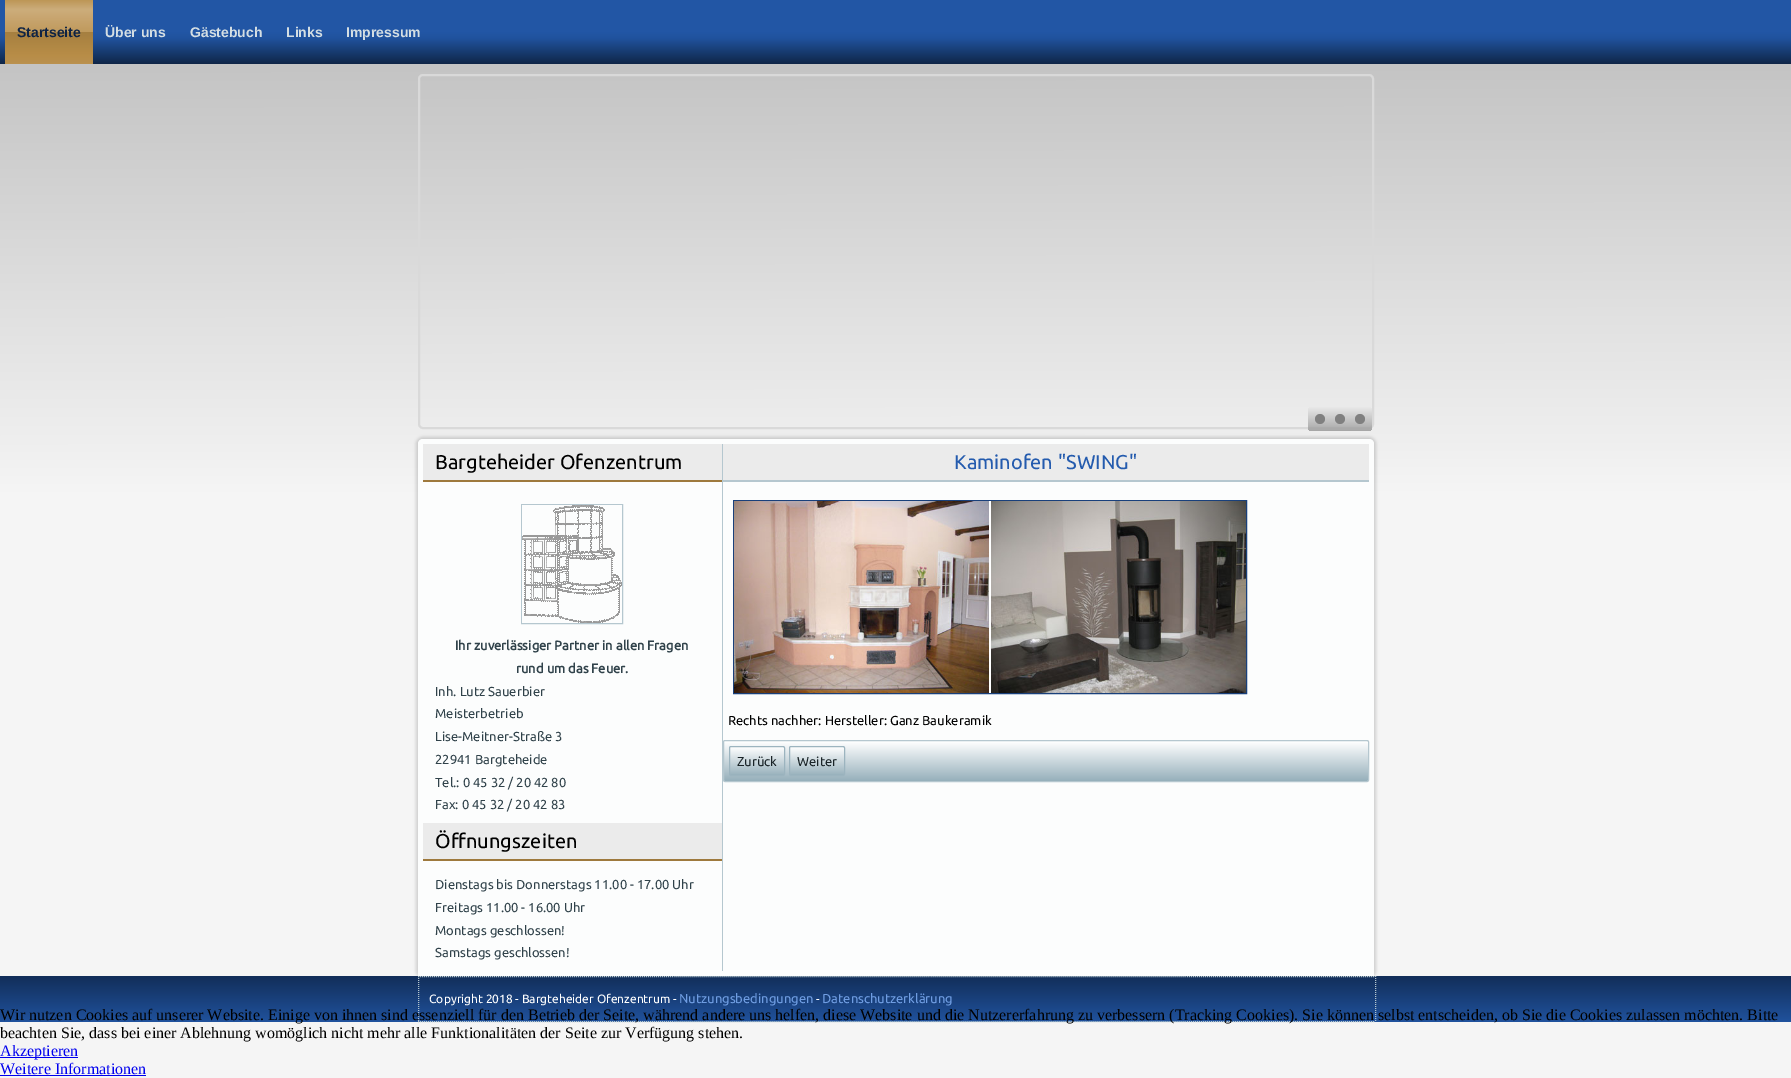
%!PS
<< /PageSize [1791 1078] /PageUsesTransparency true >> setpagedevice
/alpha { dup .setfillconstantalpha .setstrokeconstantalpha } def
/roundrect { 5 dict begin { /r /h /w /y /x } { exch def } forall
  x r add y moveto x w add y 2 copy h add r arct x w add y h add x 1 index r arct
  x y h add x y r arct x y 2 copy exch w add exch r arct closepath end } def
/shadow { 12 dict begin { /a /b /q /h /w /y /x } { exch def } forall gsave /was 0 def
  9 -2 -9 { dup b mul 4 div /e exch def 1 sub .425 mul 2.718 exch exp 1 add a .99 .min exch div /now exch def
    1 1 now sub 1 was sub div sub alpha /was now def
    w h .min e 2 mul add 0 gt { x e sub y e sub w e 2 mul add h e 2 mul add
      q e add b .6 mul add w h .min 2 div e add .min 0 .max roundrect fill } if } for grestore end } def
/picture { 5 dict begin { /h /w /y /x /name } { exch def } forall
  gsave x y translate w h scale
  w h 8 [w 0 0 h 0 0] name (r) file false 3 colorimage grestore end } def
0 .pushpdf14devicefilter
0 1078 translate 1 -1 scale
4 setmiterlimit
1 setgray
0 0 1791 1078 rectfill
gsave newpath 0 64 moveto 1791 64 lineto 1791 1078 lineto 0 1078 lineto closepath clip newpath
<< /ShadingType 2 /ColorSpace /DeviceRGB /Coords [895 0 896 1078] /Extend [true true] /Function << /FunctionType 3 /Domain [0 1] /Functions [<< /FunctionType 2 /Domain [0 1] /C0 [0.741 0.741 0.741] /C1 [0.961 0.961 0.961] /N 1 >> << /FunctionType 2 /Domain [0 1] /C0 [0.961 0.961 0.961] /C1 [0.961 0.961 0.961] /N 1 >>] /Bounds [0.46] /Encode [0 1 0 1] >> >> shfill grestore
gsave newpath 0 0 moveto 1791 0 lineto 1791 64 lineto 0 64 lineto closepath clip newpath
<< /ShadingType 2 /ColorSpace /DeviceRGB /Coords [896 0 896 64] /Extend [true true] /Function << /FunctionType 3 /Domain [0 1] /Functions [<< /FunctionType 2 /Domain [0 1] /C0 [0.133 0.337 0.647] /C1 [0.133 0.337 0.647] /N 1 >> << /FunctionType 2 /Domain [0 1] /C0 [0.133 0.337 0.647] /C1 [0.125 0.322 0.616] /N 1 >> << /FunctionType 2 /Domain [0 1] /C0 [0.125 0.322 0.616] /C1 [0.059 0.149 0.282] /N 1 >>] /Bounds [0.5 0.6] /Encode [0 1 0 1 0 1] >> >> shfill grestore
gsave newpath 5 0 moveto 93 0 lineto 93 64 lineto 5 64 lineto closepath clip newpath
<< /ShadingType 2 /ColorSpace /DeviceRGB /Coords [49 0 49 64] /Extend [true true] /Function << /FunctionType 3 /Domain [0 1] /Functions [<< /FunctionType 2 /Domain [0 1] /C0 [0.741 0.588 0.337] /C1 [0.8 0.678 0.482] /N 1 >> << /FunctionType 2 /Domain [0 1] /C0 [0.8 0.678 0.482] /C1 [0.753 0.604 0.365] /N 1 >> << /FunctionType 2 /Domain [0 1] /C0 [0.647 0.498 0.251] /C1 [0.722 0.553 0.278] /N 1 >> << /FunctionType 2 /Domain [0 1] /C0 [0.722 0.553 0.278] /C1 [0.729 0.569 0.31] /N 1 >>] /Bounds [0.15 0.5 0.86] /Encode [0 1 0 1 0 1 0 1] >> >> shfill grestore
/LiberationSans-Bold [14 0 0 -14 0 0] selectfont
0.055 0.137 0.267 setrgbcolor
17 37 moveto (Startseite) show
0.831 0.871 0.89 setrgbcolor
105 37 moveto (Über uns) show
190 37 moveto (Gästebuch) show
286 37 moveto (Links) show
346 37 moveto (Impressum) show
0.851 setgray
2 setlinewidth
419 75 954 353 4 roundrect stroke
0.8 alpha
gsave 1308 407 64 24 4 roundrect clip newpath
<< /ShadingType 2 /ColorSpace /DeviceRGB /Coords [1340 407 1340 431] /Extend [true true] /Function << /FunctionType 2 /Domain [0 1] /C0 [0.91 0.91 0.91] /C1 [0.588 0.588 0.588] /N 1 >> >> shfill grestore
1 alpha
0.502 setgray
newpath 1320 419 5 0 360 arc closepath fill
newpath 1340 419 5 0 360 arc closepath fill
newpath 1360 419 5 0 360 arc closepath fill
0 setgray
416 437 960 541 7 1.5 0.15 shadow
0.988 0.992 0.992 setrgbcolor
newpath 423 439 moveto 1369 439 lineto 1372 439 1374 441 1374 444 curveto 1374 976 lineto 418 976 lineto 418 444 lineto 418 441 420 439 423 439 curveto closepath fill
0.71 0.78 0.812 setrgbcolor
722 444 1 527 rectfill
0.922 setgray
423 444 299 36 rectfill
0.62 0.475 0.239 setrgbcolor
423 480 299 2 rectfill
/Ubuntu-Regular [20 0 0 -20 0 0] selectfont
0 setgray
435 469 moveto (Bargteheider Ofenzentrum) show
0.71 0.78 0.812 setrgbcolor
1 setlinewidth
521.5 504.5 101 119 rectstroke
(img1.rgb) 522 505 100 118 picture
/Ubuntu-Bold [13 0 0 -13 0 0] selectfont
0.188 0.259 0.29 setrgbcolor
455 650 moveto (Ihr zuverlässiger Partner in allen Fragen) show
516 673 moveto (rund um das Feuer.) show
/Ubuntu-Regular [13 0 0 -13 0 0] selectfont
435 696 moveto (Inh. Lutz Sauerbier) show
435 718 moveto (Meisterbetrieb) show
435 741 moveto (Lise-Meitner-Straße 3) show
435 764 moveto (22941 Bargteheide) show
435 787 moveto (Tel.: 0 45 32 / 20 42 80) show
435 809 moveto (Fax: 0 45 32 / 20 42 83) show
0.922 setgray
423 823 299 36 rectfill
0.62 0.475 0.239 setrgbcolor
423 859 299 2 rectfill
/Ubuntu-Regular [20 0 0 -20 0 0] selectfont
0 setgray
435 848 moveto (Öffnungszeiten) show
/Ubuntu-Regular [13 0 0 -13 0 0] selectfont
0.188 0.259 0.29 setrgbcolor
435 889 moveto (Dienstags bis Donnerstags 11.00 - 17.00 Uhr) show
435 912 moveto (Freitags 11.00 - 16.00 Uhr) show
435 935 moveto (Montags geschlossen!) show
435 957 moveto (Samstags geschlossen!) show
0.922 setgray
723 444 646 36 rectfill
0.71 0.78 0.812 setrgbcolor
723 480 646 2 rectfill
/Ubuntu-Regular [20 0 0 -20 0 0] selectfont
0.141 0.357 0.682 setrgbcolor
954 469 moveto (Kaminofen "SWING") show
0.098 0.251 0.482 setrgbcolor
733.5 500.5 513 193 rectstroke
(img2.rgb) 734 501 512 192 picture
/Ubuntu-Regular [13 0 0 -13 0 0] selectfont
0 setgray
728 725 moveto (Rechts nachher: Hersteller: Ganz Baukeramik) show
gsave newpath 724 743 moveto 1368 743 lineto 1368 781 lineto 724 781 lineto closepath clip newpath
<< /ShadingType 2 /ColorSpace /DeviceRGB /Coords [1046 741 1046 781] /Extend [true true] /Function << /FunctionType 2 /Domain [0 1] /C0 [1 1 1] /C1 [0.588 0.69 0.733] /N 1 >> >> shfill grestore
0.71 0.78 0.812 setrgbcolor
723.5 740.5 645 41 1.5 roundrect stroke
gsave newpath 730 747 moveto 784 747 lineto 784 775 lineto 730 775 lineto closepath clip newpath
<< /ShadingType 2 /ColorSpace /DeviceRGB /Coords [757 747 757 775] /Extend [true true] /Function << /FunctionType 2 /Domain [0 1] /C0 [1 1 1] /C1 [0.6 0.698 0.741] /N 1 >> >> shfill grestore
0.612 0.706 0.749 setrgbcolor
729.5 746.5 55 29 1.5 roundrect stroke
0.102 0.141 0.157 setrgbcolor
737 766 moveto (Zurück) show
gsave newpath 790 747 moveto 844 747 lineto 844 775 lineto 790 775 lineto closepath clip newpath
<< /ShadingType 2 /ColorSpace /DeviceRGB /Coords [817 747 817 775] /Extend [true true] /Function << /FunctionType 2 /Domain [0 1] /C0 [1 1 1] /C1 [0.6 0.698 0.741] /N 1 >> >> shfill grestore
0.612 0.706 0.749 setrgbcolor
789.5 746.5 55 29 1.5 roundrect stroke
0.102 0.141 0.157 setrgbcolor
797 766 moveto (Weiter) show
gsave newpath 0 976 moveto 1791 976 lineto 1791 1022 lineto 0 1022 lineto closepath clip newpath
<< /ShadingType 2 /ColorSpace /DeviceRGB /Coords [896 976 896 1022] /Extend [true true] /Function << /FunctionType 2 /Domain [0 1] /C0 [0.071 0.18 0.349] /C1 [0.125 0.322 0.616] /N 1 >> >> shfill grestore
0.71 0.78 0.812 setrgbcolor
[1 1] 0 setdash
newpath 418 976.5 moveto 1376 976.5 lineto stroke
newpath 1375.5 976 moveto 1375.5 1022 lineto stroke
newpath 418 1021.5 moveto 1376 1021.5 lineto stroke
newpath 418.5 976 moveto 418.5 1022 lineto stroke
/Ubuntu-Regular [12 0 0 -12 0 0] selectfont
1 setgray
429 1003 moveto (Copyright 2018 - Bargteheider Ofenzentrum -) show
/Ubuntu-Regular [13 0 0 -13 0 0] selectfont
0.435 0.616 0.886 setrgbcolor
679 1003 moveto (Nutzungsbedingungen) show
/Ubuntu-Regular [12 0 0 -12 0 0] selectfont
1 setgray
816 1003 moveto (-) show
/Ubuntu-Regular [13 0 0 -13 0 0] selectfont
0.435 0.616 0.886 setrgbcolor
822 1003 moveto (Datenschutzerklärung) show
/LiberationSerif-Regular [16 0 0 -16 0 0] selectfont
0 setgray
0 1020 moveto (Wir nutzen Cookies auf unserer Website. Einige von ihnen sind essenziell für den Betrieb der Seite, während andere uns helfen, diese Website und die Nutzererfahrung zu verbessern \(Tracking Cookies\). Sie können selbst entscheiden, ob Sie die Cookies zulassen möchten. Bitte) show
0 1038 moveto (beachten Sie, dass bei einer Ablehnung womöglich nicht mehr alle Funktionalitäten der Seite zur Verfügung stehen.) show
0 0 0.933 setrgbcolor
0 1057 78 1 rectfill
0 1056 moveto (Akzeptieren) show
0 1074 moveto (Weitere Informationen) show
0 1075 146 1 rectfill
.poppdf14devicefilter showpage
